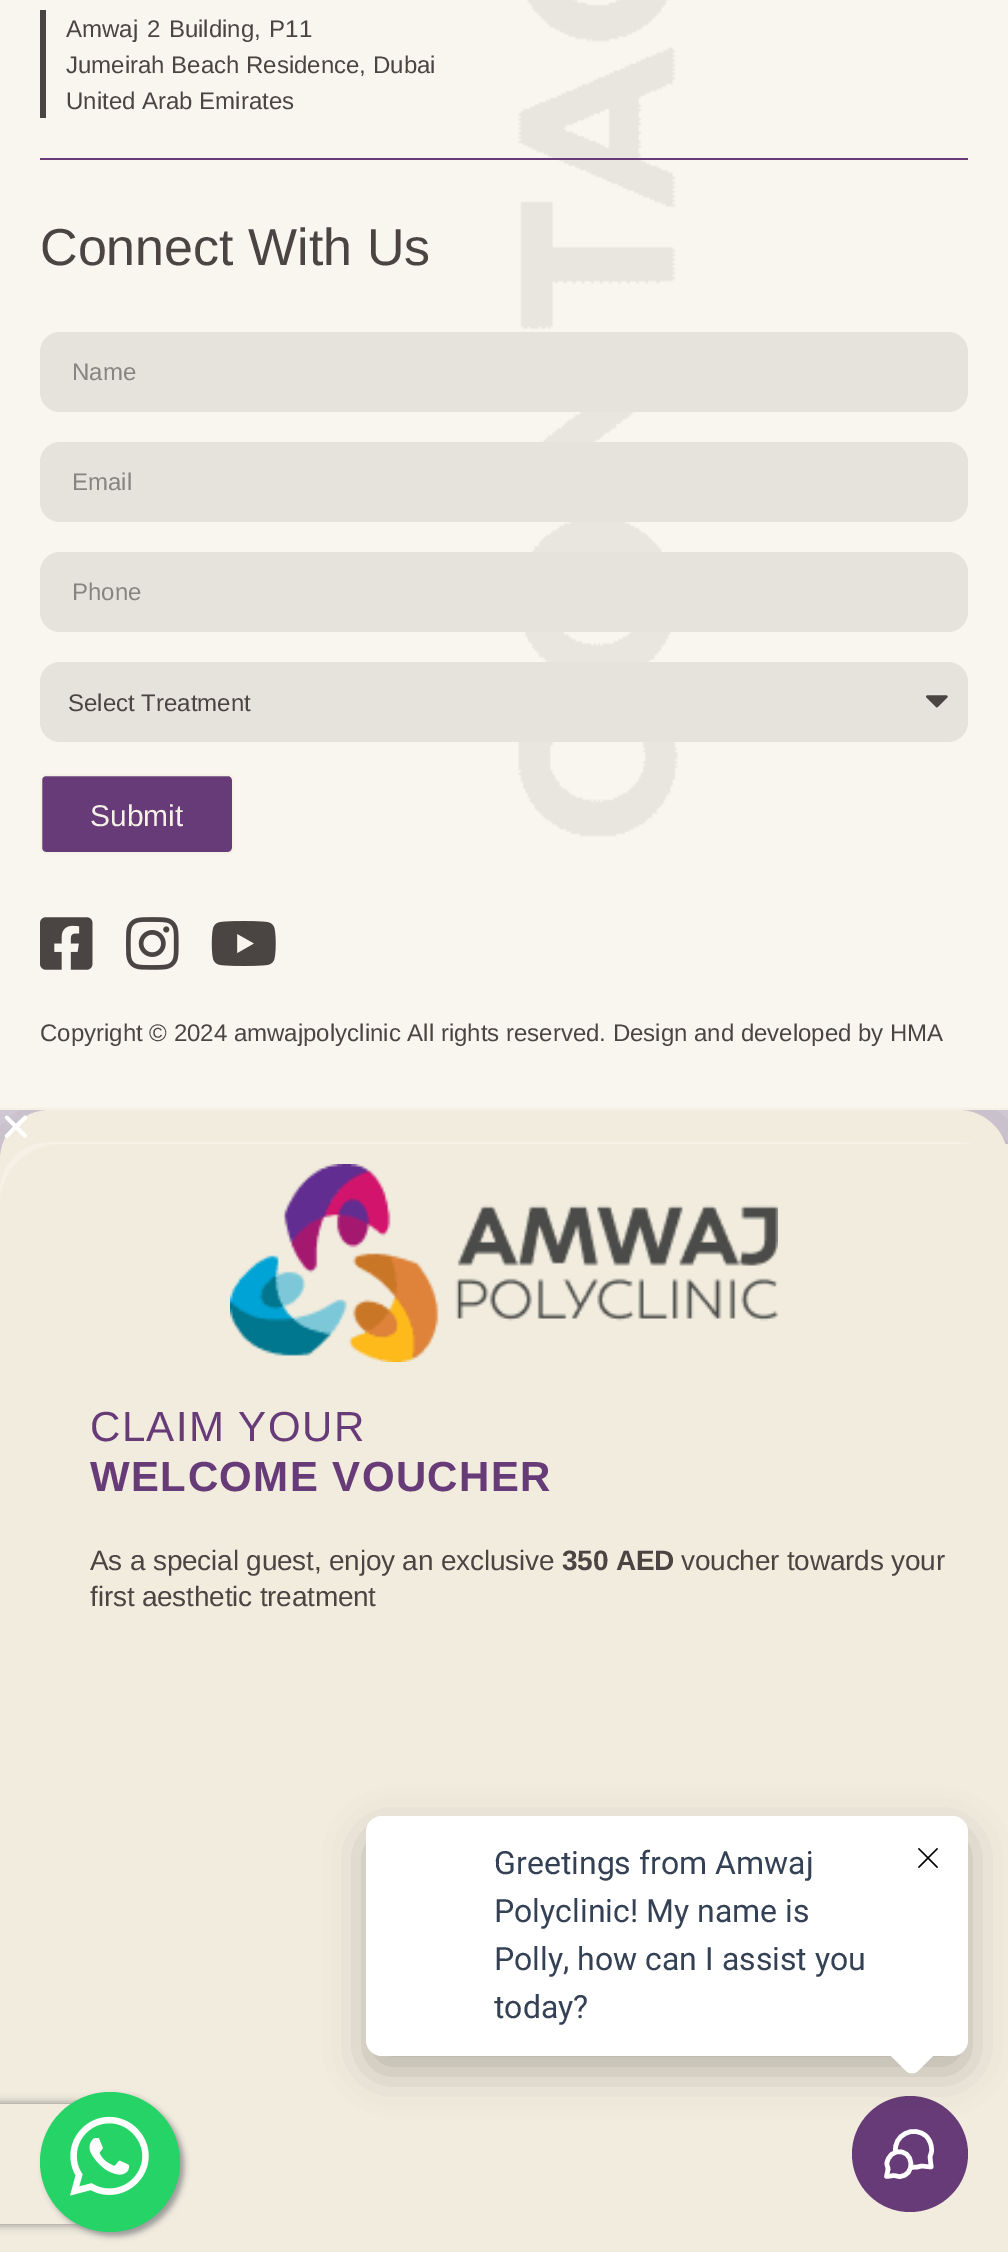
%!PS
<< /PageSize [1008 2252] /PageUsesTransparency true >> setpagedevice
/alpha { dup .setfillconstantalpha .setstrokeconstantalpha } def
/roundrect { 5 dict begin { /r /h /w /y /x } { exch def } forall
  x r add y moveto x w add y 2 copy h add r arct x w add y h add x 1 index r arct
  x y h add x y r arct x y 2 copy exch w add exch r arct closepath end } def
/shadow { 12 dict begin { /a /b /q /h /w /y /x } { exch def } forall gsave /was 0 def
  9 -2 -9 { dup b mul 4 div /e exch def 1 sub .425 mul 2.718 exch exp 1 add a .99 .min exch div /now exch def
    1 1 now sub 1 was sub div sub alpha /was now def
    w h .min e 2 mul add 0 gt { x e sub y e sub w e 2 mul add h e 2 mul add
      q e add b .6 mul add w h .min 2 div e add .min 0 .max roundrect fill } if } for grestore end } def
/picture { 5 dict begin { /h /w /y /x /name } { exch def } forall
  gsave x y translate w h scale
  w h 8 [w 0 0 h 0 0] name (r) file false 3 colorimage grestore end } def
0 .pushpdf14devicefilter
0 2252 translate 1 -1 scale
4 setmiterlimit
0.839 0.808 0.851 setrgbcolor
0 0 1008 2252 rectfill
0 setgray
-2 1120 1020 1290 56 34 0.2 shadow
0.961 0.945 0.906 setrgbcolor
0 1107 1008 3 rectfill
(img1.rgb) 0 0 1008 1108 picture
0.29 0.267 0.259 setrgbcolor
40 10 6 108 rectfill
/LiberationSans-Regular [24 0 0 -24 0 0] selectfont
66 37 moveto 2 0 32 (Amwaj 2 Building, P11) widthshow
66 73 moveto (Jumeirah Beach Residence, Dubai) show
66 109 moveto (United Arab Emirates) show
0.404 0.231 0.467 setrgbcolor
40 158 928 2 rectfill
/LiberationSans-Regular [52 0 0 -52 0 0] selectfont
0.29 0.267 0.259 setrgbcolor
40 265 moveto (Connect With Us) show
0.902 0.89 0.863 setrgbcolor
40 332 928 80 20 roundrect fill
/LiberationSans-Regular [24 0 0 -24 0 0] selectfont
0.533 0.518 0.502 setrgbcolor
72 380 moveto (Name) show
0.902 0.89 0.863 setrgbcolor
40 442 928 80 20 roundrect fill
0.533 0.518 0.502 setrgbcolor
72 490 moveto (Email) show
0.902 0.89 0.863 setrgbcolor
40 552 928 80 20 roundrect fill
0.533 0.518 0.502 setrgbcolor
72 600 moveto (Phone) show
0.902 0.89 0.863 setrgbcolor
40 662 928 80 20 roundrect fill
0.29 0.267 0.259 setrgbcolor
68 711 moveto (Select Treatment) show
(img2.rgb) 926 695 22 13 picture
0.404 0.231 0.467 setrgbcolor
41 775 192 78 5 roundrect gsave fill grestore
0.961 0.945 0.906 setrgbcolor
2 setlinewidth
stroke
/LiberationSans-Regular [30 0 0 -30 0 0] selectfont
90 826 moveto (Submit) show
0.945 0.925 0.871 setrgbcolor
0 1110 1008 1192 50 roundrect fill
0.961 0.945 0.906 setrgbcolor
0 1142 1008 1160 50 roundrect fill
0.945 0.925 0.871 setrgbcolor
newpath 60 1144 moveto 1008 1144 lineto 1008 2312 lineto 42 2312 lineto 19 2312 0 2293 0 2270 curveto 0 1204 lineto 0 1171 27 1144 60 1144 curveto closepath fill
gsave
newpath 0 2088 moveto 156 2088 lineto 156 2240 lineto 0 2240 lineto closepath -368 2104 moveto 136 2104 lineto 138 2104 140 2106 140 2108 curveto 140 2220 lineto 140 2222 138 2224 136 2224 curveto -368 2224 lineto -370 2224 -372 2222 -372 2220 curveto -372 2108 lineto -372 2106 -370 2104 -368 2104 curveto closepath eoclip newpath
0.502 setgray
-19 2104 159 120 4 5 1 shadow
grestore
(img3.rgb) 40 917 53 53 picture
(img4.rgb) 126 917 53 53 picture
(img5.rgb) 211 921 65 45 picture
/LiberationSans-Regular [24 0 0 -24 0 0] selectfont
0.29 0.267 0.259 setrgbcolor
40 1041 moveto (Copyright © 2024 amwajpolyclinic All rights reserved. Design and developed by HMA) show
(img6.rgb) 4 1115 24 23 picture
(img7.rgb) 230 1164 548 198 picture
/LiberationSans-Regular [42 0 0 -42 0 0] selectfont
0.404 0.231 0.467 setrgbcolor
90 1441 moveto 1.4 0 (CLAIM YOUR) ashow
/LiberationSans-Bold [42 0 0 -42 0 0] selectfont
90 1491 moveto 1.4 0 (WELCOME VOUCHER) ashow
/LiberationSans-Regular [28 0 0 -28 0 0] selectfont
0.29 0.267 0.259 setrgbcolor
90 1570 moveto -0.2 0 (As a special guest, enjoy an exclusive) ashow
/LiberationSans-Bold [28 0 0 -28 0 0] selectfont
562 1570 moveto -0.2 0 (350 AED) ashow
/LiberationSans-Regular [28 0 0 -28 0 0] selectfont
681 1570 moveto -0.2 0 (voucher towards your) ashow
90 1606 moveto -0.2 0 (first aesthetic treatment) ashow
0.6 setgray
44 2096 140 140 70 3 1 shadow
0.145 0.827 0.4 setrgbcolor
newpath 110 2162 70 0 360 arc closepath fill
(img8.rgb) 70 2116 79 80 picture
0.404 0.231 0.467 setrgbcolor
newpath 910 2154 58 0 360 arc closepath fill
1 setgray
4.5 setlinewidth
1 setlinecap
1 setlinejoin
newpath 895.5 2152.5 moveto 893 2135 914 2124.5 926.5 2136.5 curveto 930 2140.5 931.5 2144.5 931.5 2149.5 curveto 932 2152 930.5 2154.5 930 2157 curveto 931 2165.5 lineto 931 2167 lineto 921.5 2166 lineto 917.5 2167 lineto 910.5 2167.5 lineto 899 2176.5 moveto 916.5 2176.5 914 2148.5 896.5 2152 curveto 892.5 2153 889.5 2155.5 888 2159.5 curveto 885.5 2165 888 2165.5 888 2169.5 curveto 886.5 2176.5 lineto 894 2175.5 lineto closepath stroke
0 setgray
366 1832 602 240 16 20 0.24 shadow
1 setgray
366 1816 602 240 16 roundrect fill
/Roboto-Regular [32 0 0 -32 0 0] selectfont
0.204 0.251 0.329 setrgbcolor
494 1874 moveto (Greetings from Amwaj) show
494 1922 moveto (Polyclinic! My name is) show
494 1970 moveto (Polly, how can I assist you) show
494 2018 moveto (today?) show
1 setgray
newpath 918 2025 moveto 935 2042 lineto 938 2045 938 2051 935 2054 curveto 918 2071 lineto 915 2074 909 2074 906 2071 curveto 889 2054 lineto 886 2051 886 2045 889 2042 curveto 906 2025 lineto 909 2022 915 2022 918 2025 curveto closepath fill
(img9.rgb) 918 1848 20 20 picture
.poppdf14devicefilter showpage
